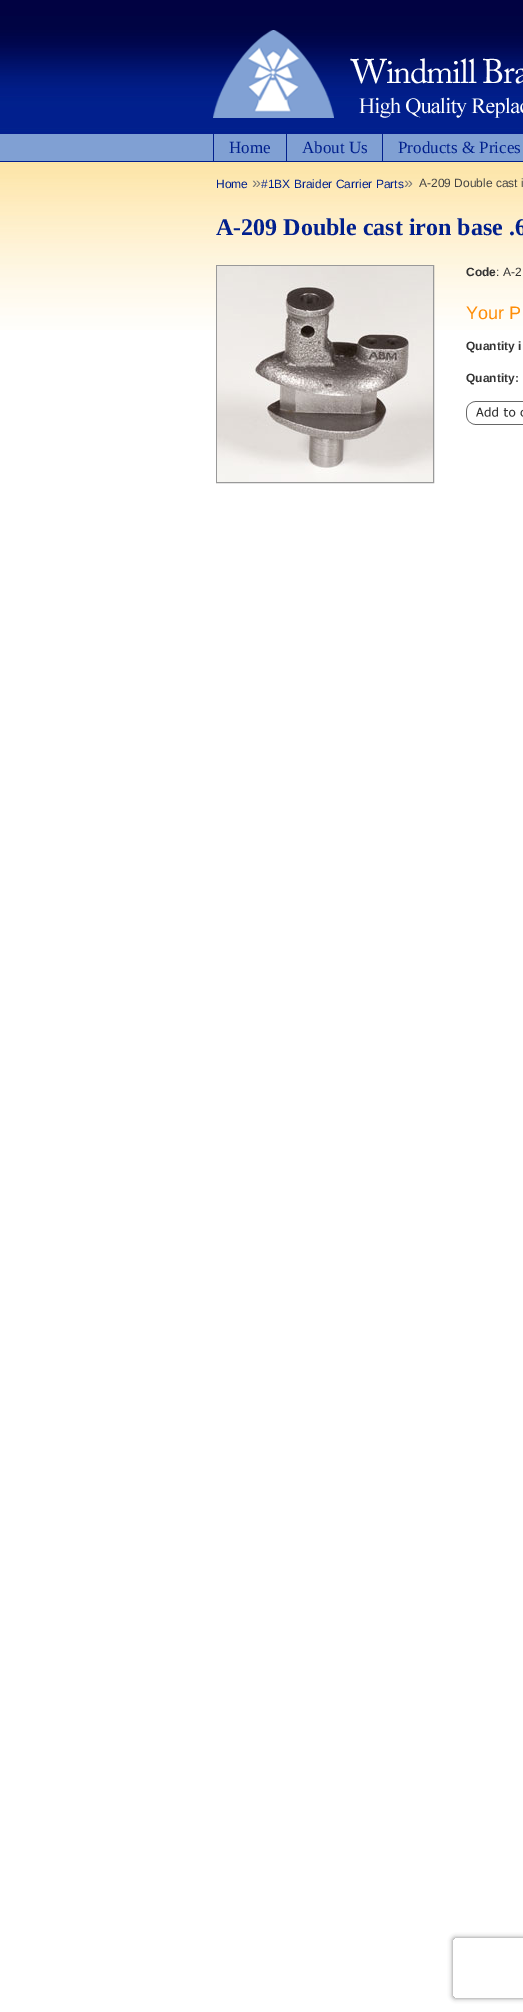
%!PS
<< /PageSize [523 2012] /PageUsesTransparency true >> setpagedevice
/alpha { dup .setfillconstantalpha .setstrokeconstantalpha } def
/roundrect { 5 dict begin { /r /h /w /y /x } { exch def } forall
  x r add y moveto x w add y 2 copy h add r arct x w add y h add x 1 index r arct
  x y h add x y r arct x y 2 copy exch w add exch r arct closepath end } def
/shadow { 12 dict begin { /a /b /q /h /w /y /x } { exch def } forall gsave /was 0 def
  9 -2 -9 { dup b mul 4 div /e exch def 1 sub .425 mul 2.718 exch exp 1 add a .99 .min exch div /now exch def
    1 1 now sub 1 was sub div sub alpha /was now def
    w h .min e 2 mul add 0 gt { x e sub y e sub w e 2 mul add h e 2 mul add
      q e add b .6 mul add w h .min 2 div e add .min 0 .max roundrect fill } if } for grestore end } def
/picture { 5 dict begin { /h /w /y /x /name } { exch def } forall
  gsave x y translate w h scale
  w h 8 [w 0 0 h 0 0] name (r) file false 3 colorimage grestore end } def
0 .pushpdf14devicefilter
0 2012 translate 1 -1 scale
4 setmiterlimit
1 setgray
0 0 523 2012 rectfill
(img1.rgb) 0 0 523 330 picture
(img2.rgb) 213 30 310 88 picture
0.004 0.125 0.553 setrgbcolor
213 134 1 27 rectfill
/LiberationSerif-Regular [17 0 0 -17 0 0] selectfont
229 153 moveto (Home) show
286 134 1 27 rectfill
302 153 moveto (About Us) show
382 134 1 27 rectfill
398 153 moveto (Products & Prices) show
/LiberationSans-Regular [12 0 0 -12 0 0] selectfont
216 188 moveto (Home) show
/LiberationSans-Regular [16 0 0 -16 0 0] selectfont
0.467 setgray
252 188 moveto (») show
/LiberationSans-Regular [12 0 0 -12 0 0] selectfont
0.004 0.125 0.553 setrgbcolor
261 188 moveto (#1BX Braider Carrier Parts) show
/LiberationSans-Regular [16 0 0 -16 0 0] selectfont
0.467 setgray
404 188 moveto (») show
/LiberationSans-Regular [12 0 0 -12 0 0] selectfont
0.263 setgray
419 187 moveto (A-209 Double cast i) show
/LiberationSerif-Bold [24 0 0 -24 0 0] selectfont
0.004 0.125 0.553 setrgbcolor
216 235 moveto (A-209 Double cast iron base .6) show
0.6 setgray
216.5 265.5 217 217 rectstroke
(img3.rgb) 217 266 216 216 picture
/LiberationSans-Bold [12 0 0 -12 0 0] selectfont
0.2 setgray
466 276 moveto (Code) show
/LiberationSans-Regular [12 0 0 -12 0 0] selectfont
496 276 moveto (: A-2) show
/LiberationSans-Regular [18 0 0 -18 0 0] selectfont
0.996 0.553 0.024 setrgbcolor
466 319 moveto (Your P) show
/LiberationSans-Bold [12 0 0 -12 0 0] selectfont
0.2 setgray
466 350 moveto (Quantity i) show
466 382 moveto (Quantity:) show
(img4.rgb) 466 401 57 24 picture
gsave
newpath 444 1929 moveto 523 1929 lineto 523 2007 lineto 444 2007 lineto closepath 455 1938 moveto 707 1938 lineto 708 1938 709 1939 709 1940 curveto 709 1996 lineto 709 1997 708 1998 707 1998 curveto 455 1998 lineto 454 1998 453 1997 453 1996 curveto 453 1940 lineto 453 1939 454 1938 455 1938 curveto closepath eoclip newpath
0.502 setgray
453 1938 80 60 2 2.5 1 shadow
grestore
.poppdf14devicefilter showpage
